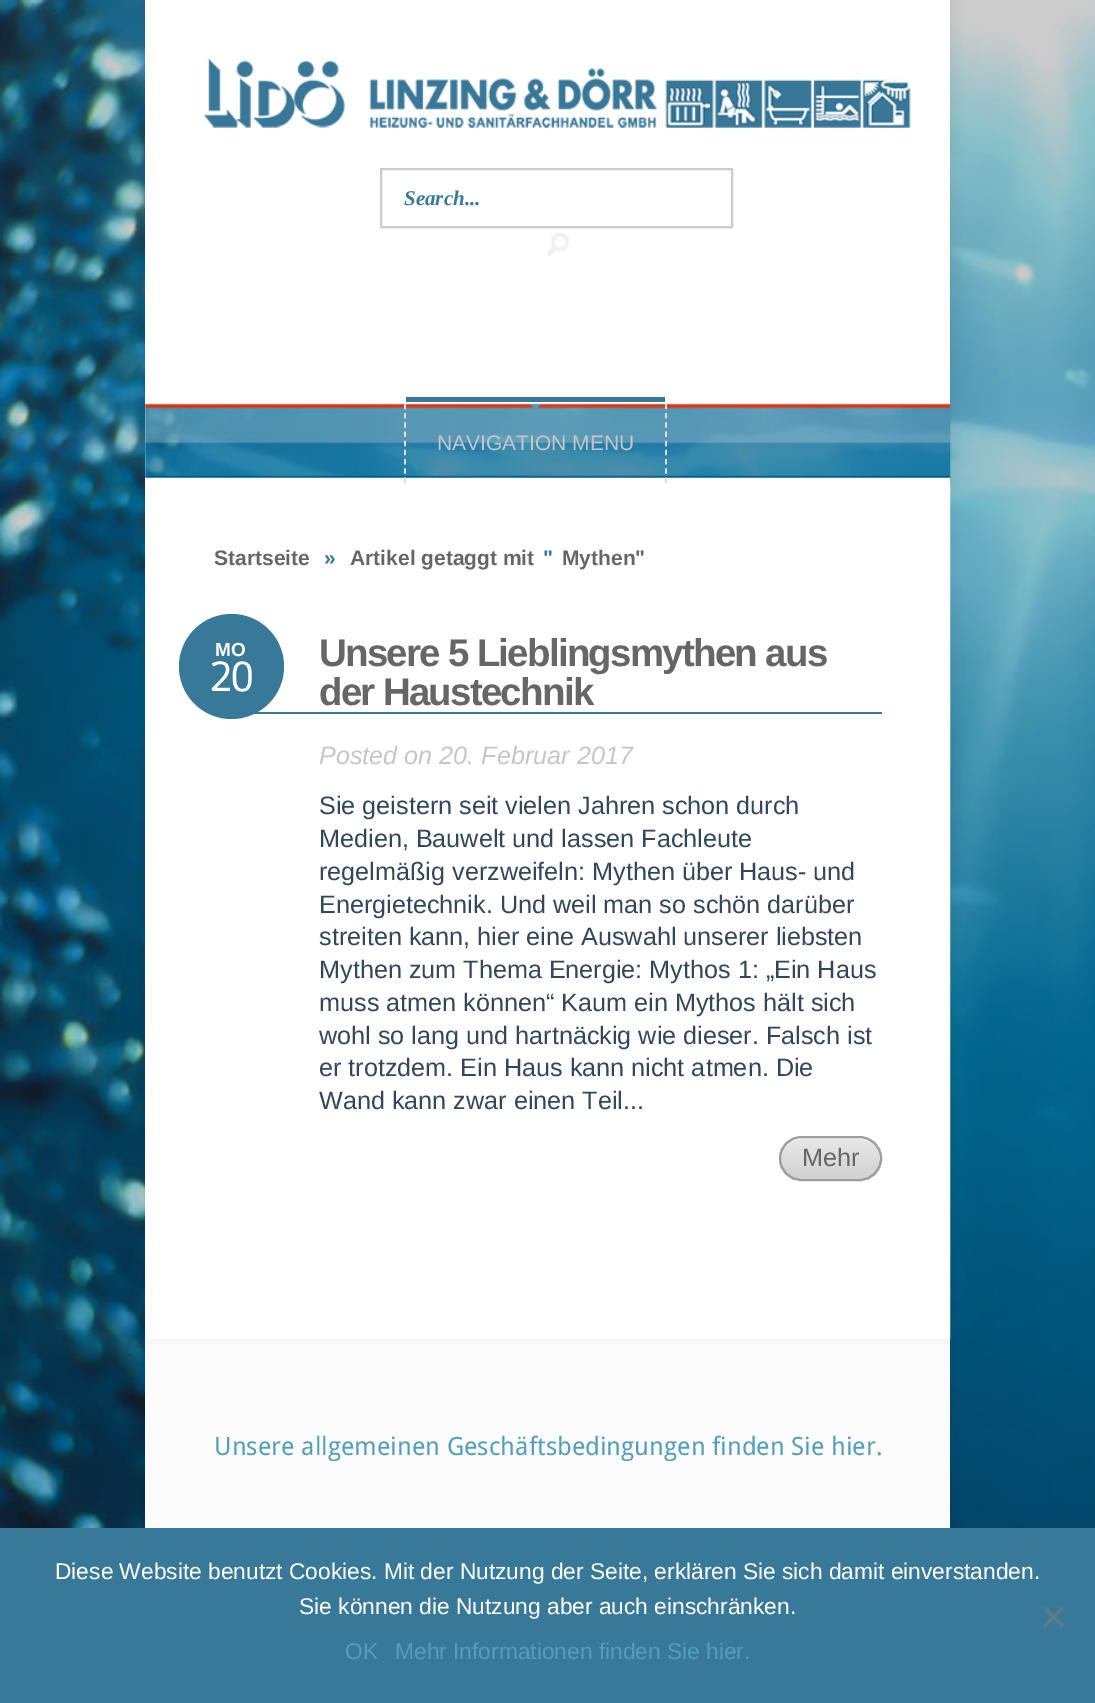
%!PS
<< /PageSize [1095 1703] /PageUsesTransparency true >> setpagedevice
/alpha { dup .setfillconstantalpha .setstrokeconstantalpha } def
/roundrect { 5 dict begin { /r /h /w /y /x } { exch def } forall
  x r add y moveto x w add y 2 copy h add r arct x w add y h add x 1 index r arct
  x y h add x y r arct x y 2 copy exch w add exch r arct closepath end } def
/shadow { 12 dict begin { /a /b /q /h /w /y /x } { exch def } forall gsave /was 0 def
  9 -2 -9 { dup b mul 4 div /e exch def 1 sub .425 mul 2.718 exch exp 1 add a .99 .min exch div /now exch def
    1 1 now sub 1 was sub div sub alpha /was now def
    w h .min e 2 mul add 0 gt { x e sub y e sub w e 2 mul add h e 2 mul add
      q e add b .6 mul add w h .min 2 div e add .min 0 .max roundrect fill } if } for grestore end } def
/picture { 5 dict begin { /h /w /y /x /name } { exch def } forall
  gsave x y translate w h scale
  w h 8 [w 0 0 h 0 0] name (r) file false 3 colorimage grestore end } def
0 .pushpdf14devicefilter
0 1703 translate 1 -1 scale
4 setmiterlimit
1 setgray
0 0 1095 1703 rectfill
(img1.rgb) 0 0 1095 1528 picture
0 setgray
145 0 805 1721 0 6 0.08 shadow
1 setgray
145 0 805 1339 rectfill
0.937 setgray
145 403 805 2 rectfill
(img2.rgb) 202 58 709 70 picture
0.8 setgray
2 setlinewidth
381 169 351 58 rectstroke
/LiberationSerif-BoldItalic [21 0 0 -21 0 0] selectfont
0.22 0.471 0.596 setrgbcolor
404 205 moveto (Search...) show
(img3.rgb) 547 232 22 24 picture
(img4.rgb) 145 404 806 74 picture
0.863 setgray
1.8 setlinewidth
[5.25 3.94] 0 setdash
newpath 666 404 moveto 666 483 lineto stroke
newpath 405 404 moveto 405 483 lineto stroke
0.22 0.471 0.596 setrgbcolor
406 397 259 5 rectfill
0.329 0.62 0.725 setrgbcolor
newpath 530 404 moveto 541 404 lineto 535.5 409.5 lineto closepath fill
/LiberationSans-Regular [21 0 0 -21 0 0] selectfont
0.776 setgray
437 450 moveto (NAVIGATION MENU) show
(img5.rgb) 950 484 1 855 picture
/LiberationSans-Bold [21 0 0 -21 0 0] selectfont
0.4 setgray
214 565 moveto (Startseite) show
350 565 moveto (Artikel getaggt mit) show
0.22 0.471 0.596 setrgbcolor
543 565 moveto (") show
0.4 setgray
562 565 moveto (Mythen") show
0.22 0.471 0.596 setrgbcolor
324 565 moveto (») show
249 712 633 2 rectfill
newpath 231.5 666.5 52.5 0 360 arc closepath fill
/LiberationSans-Bold [19 0 0 -19 0 0] selectfont
1 setgray
215 656 moveto (MO) show
/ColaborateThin-Bold [46 0 0 -46 0 0] selectfont
210 691 moveto (20) show
/LiberationSans-Bold [38.5 0 0 -38.5 0 0] selectfont
0.4 setgray
319 666 moveto -1.75 0 (Unsere 5 Lieblingsmythen aus) ashow
319 705 moveto -1.75 0 (der Haustechnik) ashow
/LiberationSans-Italic [25.2 0 0 -25.2 0 0] selectfont
0.776 setgray
319 764 moveto (Posted on 20. Februar 2017) show
/LiberationSans-Regular [25.2 0 0 -25.2 0 0] selectfont
0.2 0.275 0.357 setrgbcolor
319 814 moveto (Sie geistern seit vielen Jahren schon durch) show
319 847 moveto (Medien, Bauwelt und lassen Fachleute) show
319 880 moveto (regelmäßig verzweifeln: Mythen über Haus- und) show
319 913 moveto (Energietechnik. Und weil man so schön darüber) show
319 945 moveto (streiten kann, hier eine Auswahl unserer liebsten) show
319 978 moveto (Mythen zum Thema Energie: Mythos 1: „Ein Haus) show
319 1011 moveto (muss atmen können“ Kaum ein Mythos hält sich) show
319 1044 moveto (wohl so lang und hartnäckig wie dieser. Falsch ist) show
319 1076 moveto (er trotzdem. Ein Haus kann nicht atmen. Die) show
319 1109 moveto (Wand kann zwar einen Teil...) show
gsave
779 1136 103 45 22.5 roundrect clip newpath
gsave newpath 779 1138 moveto 882 1138 lineto 882 1180 lineto 779 1180 lineto closepath clip newpath
<< /ShadingType 2 /ColorSpace /DeviceRGB /Coords [830 1138 830 1180] /Extend [true true] /Function << /FunctionType 2 /Domain [0 1] /C0 [0.91 0.91 0.91] /C1 [0.82 0.82 0.82] /N 1 >> >> shfill grestore
grestore
0.961 setgray
newpath 802 1139 moveto 859 1139 lineto 871 1139 880 1149 880 1160 curveto 880 1159 lineto 880 1147 871 1138 859 1138 curveto 802 1138 lineto 794 1138 787 1142 784 1149 curveto 788 1143 795 1139 802 1139 curveto closepath fill
0.616 setgray
2 setlinewidth
[] 0 setdash
780 1137 101 43 21.5 roundrect stroke
0.4 setgray
802 1166 moveto (Mehr) show
0.988 setgray
145 1344 805 184 rectfill
0.969 setgray
145 1339 805 5 rectfill
/DroidSans-Regular [25.2 0 0 -25.2 0 0] selectfont
0.329 0.62 0.725 setrgbcolor
214 1455 moveto (Unsere allgemeinen Geschäftsbedingungen finden Sie hier.) show
0.22 0.471 0.596 setrgbcolor
0 1528 1095 175 rectfill
/LiberationSans-Regular [22.75 0 0 -22.75 0 0] selectfont
1 setgray
55 1579 moveto (Diese Website benutzt Cookies. Mit der Nutzung der Seite, erklären Sie sich damit einverstanden.) show
299 1614 moveto (Sie können die Nutzung aber auch einschränken.) show
0.361 0.486 0.549 setrgbcolor
newpath 1061.5 1606.5 moveto 1064 1609 lineto 1045.5 1627.5 lineto 1043 1625 lineto closepath fill
newpath 1043 1609 moveto 1045.5 1606.5 lineto 1064 1625 lineto 1061.5 1627.5 lineto closepath fill
0.329 0.62 0.725 setrgbcolor
345 1659 moveto (OK) show
395 1659 moveto (Mehr Informationen finden Sie hier.) show
.poppdf14devicefilter showpage
